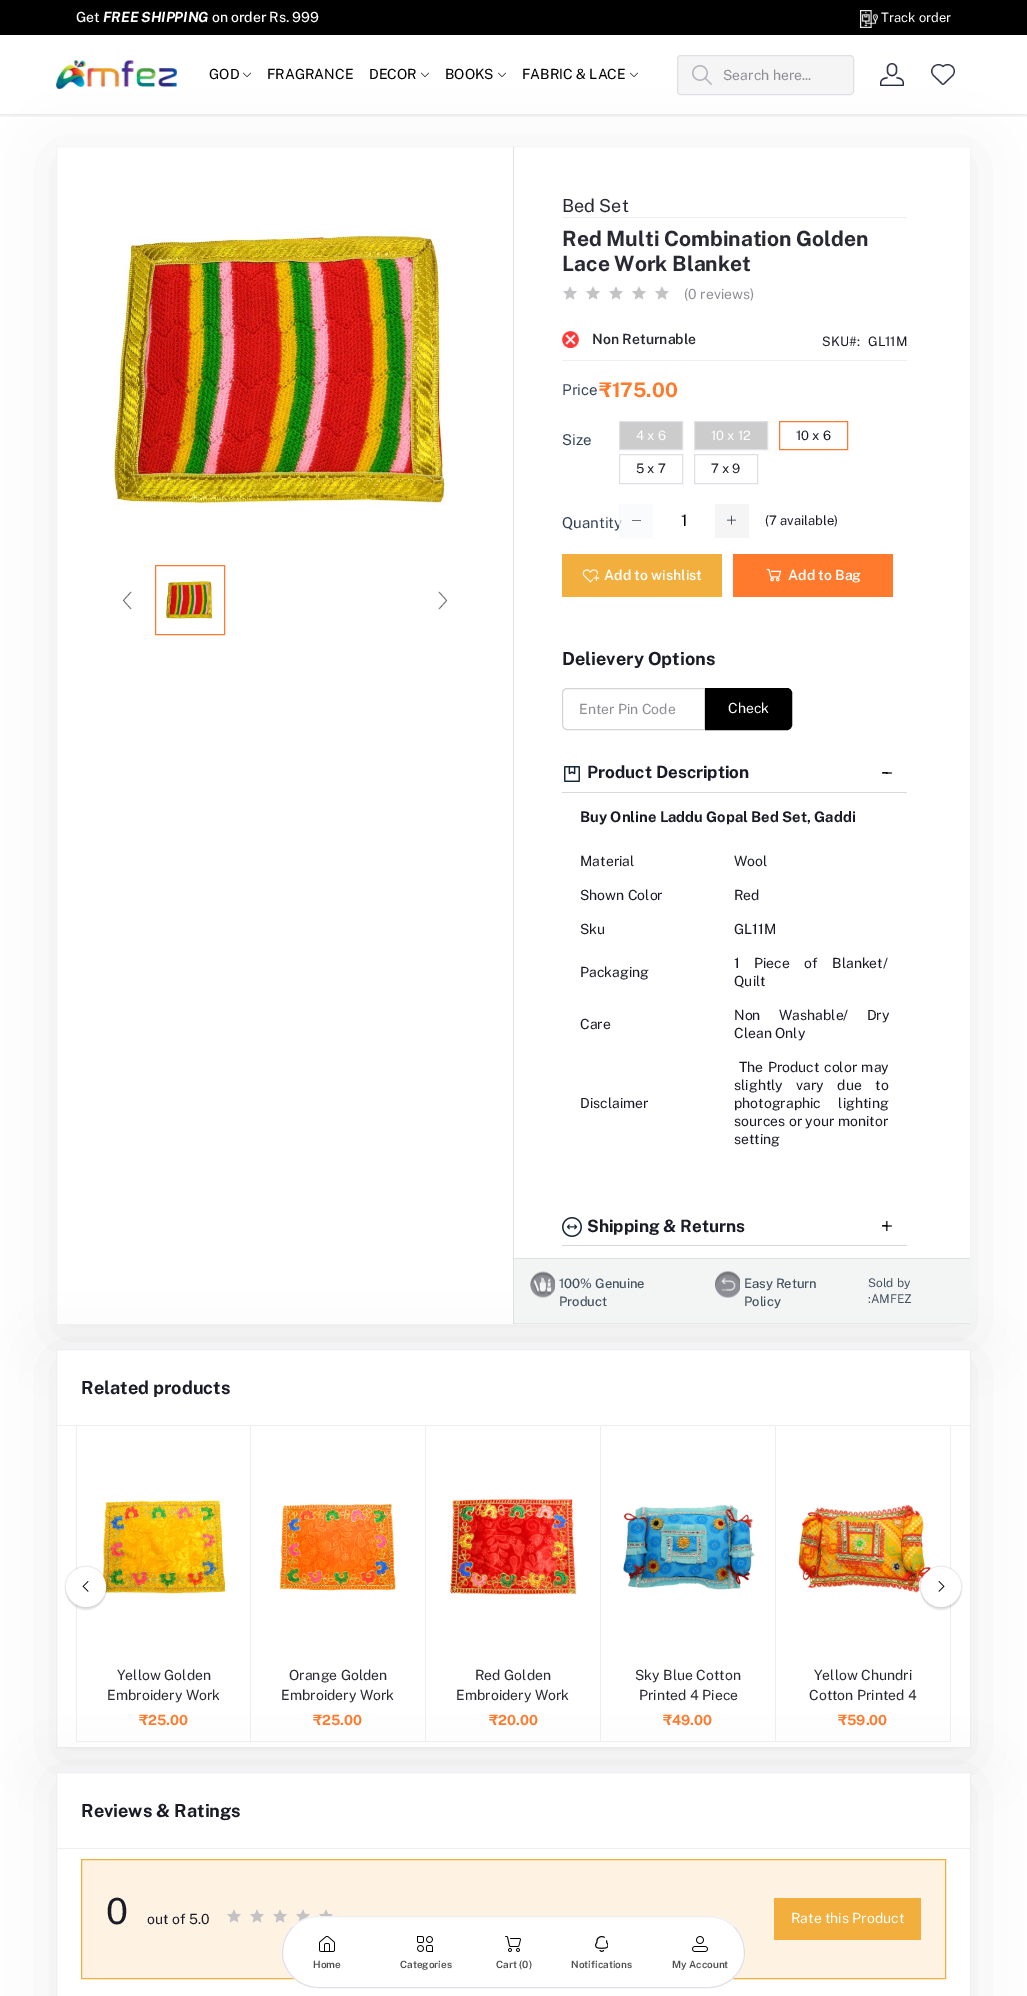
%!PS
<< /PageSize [1027 1996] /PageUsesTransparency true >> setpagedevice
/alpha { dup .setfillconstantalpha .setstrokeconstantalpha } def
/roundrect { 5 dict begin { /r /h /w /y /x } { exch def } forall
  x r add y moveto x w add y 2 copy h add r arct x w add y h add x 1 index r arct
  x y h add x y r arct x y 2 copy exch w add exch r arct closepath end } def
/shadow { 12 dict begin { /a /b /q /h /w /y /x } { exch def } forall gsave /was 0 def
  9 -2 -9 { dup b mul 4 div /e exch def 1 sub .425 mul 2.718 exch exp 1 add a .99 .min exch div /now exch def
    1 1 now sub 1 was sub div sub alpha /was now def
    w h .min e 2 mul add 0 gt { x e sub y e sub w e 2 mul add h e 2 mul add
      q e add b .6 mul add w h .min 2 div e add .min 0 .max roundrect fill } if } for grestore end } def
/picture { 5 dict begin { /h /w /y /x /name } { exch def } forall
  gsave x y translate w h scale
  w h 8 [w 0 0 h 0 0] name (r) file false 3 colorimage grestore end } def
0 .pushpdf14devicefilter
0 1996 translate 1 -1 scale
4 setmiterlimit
1 setgray
0 0 1027 1996 rectfill
0 setgray
0 0 1027 35 rectfill
/PublicSans-Medium [14 0 0 -14 0 0] selectfont
1 setgray
76 22 moveto -0.1 0 (Get) ashow
/PublicSans-BoldItalic [14 0 0 -14 0 0] selectfont
103 22 moveto -0.1 0 (FREE SHIPPING) ashow
/PublicSans-Medium [14 0 0 -14 0 0] selectfont
212 22 moveto -0.1 0 (on order Rs. 999) ashow
(img1.rgb) 860 10 18 18 picture
/PublicSans-Regular [13 0 0 -13 0 0] selectfont
881 22 moveto (Track order) show
gsave
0 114 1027 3 rectclip
0.231 0.227 0.227 setrgbcolor
0 37 1027 79 0 1.5 0.1 shadow
grestore
gsave
newpath 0 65 moveto 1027 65 lineto 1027 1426 lineto 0 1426 lineto closepath 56 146 moveto 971 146 lineto 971 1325 lineto 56 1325 lineto closepath eoclip newpath
0 setgray
56 156 915 1179 0 30 0.07 shadow
grestore
(img2.rgb) 56 60 121 30 picture
/PublicSans-Regular [14 0 0 -14 0 0] selectfont
0 setgray
209 79 moveto (GOD) show
(img3.rgb) 243 72 8 5 picture
267 79 moveto (FRAGRANCE) show
369 79 moveto (DECOR) show
(img3.rgb) 421 72 8 5 picture
445 79 moveto (BOOKS) show
(img3.rgb) 498 72 8 5 picture
522 79 moveto (FABRIC & LACE) show
(img3.rgb) 630 72 8 5 picture
0.961 0.961 0.965 setrgbcolor
677.5 55.5 176 39 3.5 roundrect gsave fill grestore
0.875 0.875 0.902 setrgbcolor
stroke
(img4.rgb) 692 65 20 20 picture
0.553 0.553 0.58 setrgbcolor
723 80 moveto (Search here...) show
(img5.rgb) 880 63 24 23 picture
(img6.rgb) 931 64 24 21 picture
0.953 0.957 0.961 setrgbcolor
56.5 146.5 914 1178 rectstroke
0.875 0.886 0.89 setrgbcolor
513 147 1 1177 rectfill
(img7.rgb) 113 230 336 276 picture
(img8.rgb) 123 591 9 19 picture
1 0.478 0.173 setrgbcolor
155.5 565.5 69 69 rectstroke
(img9.rgb) 166 581 47 38 picture
(img10.rgb) 438 591 9 19 picture
0.929 0.929 0.949 setrgbcolor
562 217 345 1 rectfill
/PublicSans-Regular [18 0 0 -18 0 0] selectfont
0.161 0.161 0.2 setrgbcolor
562 212 moveto (Bed Set) show
/PublicSans-Bold [21 0 0 -21 0 0] selectfont
562 246 moveto (Red Multi Combination Golden) show
562 271 moveto (Lace Work Blanket) show
(img11.rgb) 563 286 14 14 picture
(img11.rgb) 586 286 14 14 picture
(img11.rgb) 609 286 14 14 picture
(img11.rgb) 632 286 14 14 picture
(img11.rgb) 655 286 14 14 picture
/PublicSans-Regular [14 0 0 -14 0 0] selectfont
0.553 0.553 0.58 setrgbcolor
684 299 moveto (\(0 reviews\)) show
(img12.rgb) 562 331 17 17 picture
/PublicSans-SemiBold [14 0 0 -14 0 0] selectfont
0.161 0.161 0.2 setrgbcolor
592 344 moveto (Non Returnable) show
/PublicSans-Regular [13 0 0 -13 0 0] selectfont
0.106 0.106 0.157 setrgbcolor
822 346 moveto (SKU#:) show
868 346 moveto (GL11M) show
0.929 0.929 0.949 setrgbcolor
562 360 345 1 rectfill
/PublicSans-Regular [15 0 0 -15 0 0] selectfont
0.2 0.259 0.341 setrgbcolor
562 395 moveto (Price) show
/PublicSans-Bold [20 0 0 -20 0 0] selectfont
1 0.478 0.173 setrgbcolor
599 397 moveto (₹175.00) show
/PublicSans-Regular [15 0 0 -15 0 0] selectfont
0.2 0.259 0.341 setrgbcolor
562 445 moveto (Size) show
0.8 setgray
newpath 619.5 421.5 moveto 682.5 421.5 lineto 682.5 449.5 lineto 619.5 449.5 lineto closepath gsave fill grestore
0.875 0.875 0.902 setrgbcolor
stroke
/PublicSans-Regular [13 0 0 -13 0 0] selectfont
1 setgray
636 440 moveto (4 x 6) show
0.8 setgray
newpath 694.5 421.5 moveto 767.5 421.5 lineto 767.5 449.5 lineto 694.5 449.5 lineto closepath gsave fill grestore
0.875 0.875 0.902 setrgbcolor
stroke
1 setgray
711 440 moveto (10 x 12) show
1 0.478 0.173 setrgbcolor
779.5 421.5 68 28 rectstroke
0.106 0.106 0.157 setrgbcolor
796 440 moveto (10 x 6) show
0.875 0.875 0.902 setrgbcolor
619.5 454.5 63 29 rectstroke
0.106 0.106 0.157 setrgbcolor
636 473 moveto (5 x 7) show
0.875 0.875 0.902 setrgbcolor
694.5 454.5 63 29 rectstroke
0.106 0.106 0.157 setrgbcolor
711 473 moveto (7 x 9) show
/PublicSans-Regular [15 0 0 -15 0 0] selectfont
0.2 0.259 0.341 setrgbcolor
562 528 moveto (Quantity) show
0.65 alpha
0.973 0.976 0.98 setrgbcolor
619 504 34 34 rectfill
619.5 504.5 33 33 rectstroke
1 alpha
0.435 0.443 0.455 setrgbcolor
632 520 9 1 rectfill
/PublicSans-Regular [16 0 0 -16 0 0] selectfont
0 setgray
681 526 moveto (1) show
0.961 setgray
715 504 34 34 rectfill
(img13.rgb) 727 515 9 10 picture
/PublicSans-Regular [13 0 0 -13 0 0] selectfont
0.106 0.106 0.157 setrgbcolor
765 525 moveto (\(7 available\)) show
0.953 0.686 0.239 setrgbcolor
562 554 160 43 rectfill
(img14.rgb) 582 569 18 14 picture
/PublicSans-SemiBold [14 0 0 -14 0 0] selectfont
1 setgray
604 580 moveto (Add to wishlist) show
1 0.478 0.173 setrgbcolor
733 554 160 43 rectfill
(img15.rgb) 766 568 16 14 picture
1 setgray
788 580 moveto (Add to Bag) show
/PublicSans-Bold [18 0 0 -18 0 0] selectfont
0.106 0.106 0.157 setrgbcolor
562 665 moveto (Delievery Options) show
0.831 setgray
newpath 567 688.5 moveto 704.5 688.5 lineto 704.5 729.5 lineto 567 729.5 lineto 564.5 729.5 562.5 727.5 562.5 725 curveto 562.5 693 lineto 562.5 690.5 564.5 688.5 567 688.5 curveto closepath stroke
/PublicSans-Regular [14 0 0 -14 0 0] selectfont
0.553 0.553 0.58 setrgbcolor
579 714 moveto (Enter Pin Code) show
0 setgray
newpath 705.5 688.5 moveto 787 688.5 lineto 789.5 688.5 791.5 690.5 791.5 693 curveto 791.5 725 lineto 791.5 727.5 789.5 729.5 787 729.5 curveto 705.5 729.5 lineto closepath gsave fill grestore
stroke
1 setgray
728 713 moveto (Check) show
(img16.rgb) 882 772 10 2 picture
0.839 0.851 0.863 setrgbcolor
562 792 345 1 rectfill
(img17.rgb) 564 766 16 16 picture
/PublicSans-Bold [17 0 0 -17 0 0] selectfont
0.106 0.106 0.157 setrgbcolor
587 778 moveto (Product Description) show
/PublicSans-Bold [14.7 0 0 -14.7 0 0] selectfont
580 822 moveto (Buy Online Laddu Gopal Bed Set, Gaddi) show
/PublicSans-Regular [14 0 0 -14 0 0] selectfont
580 866 moveto (Material) show
734 866 moveto (Wool) show
580 900 moveto (Shown Color) show
734 900 moveto (Red) show
580 934 moveto (Sku) show
734 934 moveto (GL11M) show
580 977 moveto (Packaging) show
734 968 moveto 11 0 32 (1 Piece of Blanket/) widthshow
734 986 moveto (Quilt) show
580 1029 moveto (Care) show
734 1020 moveto 15 0 32 (Non Washable/ Dry) widthshow
734 1038 moveto (Clean Only) show
580 1108 moveto (Disclaimer) show
739 1072 moveto 1 0 32 (The Product color may) widthshow
734 1090 moveto 10 0 32 (slightly vary due to) widthshow
734 1108 moveto 14 0 32 (photographic lighting) widthshow
734 1126 moveto (sources or your monitor) show
734 1144 moveto (setting) show
(img18.rgb) 882 1221 10 10 picture
0.839 0.851 0.863 setrgbcolor
562 1245 345 1 rectfill
(img19.rgb) 562 1217 20 20 picture
/PublicSans-Bold [17 0 0 -17 0 0] selectfont
0.106 0.106 0.157 setrgbcolor
587 1232 moveto (Shipping & Returns) show
0 setgray
56 1359 915 399 0 30 0.07 shadow
0.953 0.957 0.957 setrgbcolor
514 1259 456 64 rectfill
0.871 0.878 0.886 setrgbcolor
514 1258 456 1 rectfill
0.894 0.902 0.906 setrgbcolor
514 1323 456 1 rectfill
(img20.rgb) 530 1271 25 27 picture
/PublicSans-Medium [13 0 0 -13 0 0] selectfont
0.267 0.322 0.373 setrgbcolor
559 1288 moveto -0.1 0 (100% Genuine) ashow
559 1306 moveto -0.1 0 (Product) ashow
(img21.rgb) 715 1271 25 27 picture
744 1288 moveto -0.1 0 (Easy Return) ashow
744 1306 moveto -0.1 0 (Policy) ashow
/PublicSans-Regular [12 0 0 -12 0 0] selectfont
868 1287 moveto (Sold by) show
868 1303 moveto (:AMFEZ) show
1 setgray
newpath 56.5 1349.5 moveto 970.5 1349.5 lineto 970.5 1747.5 lineto 56.5 1747.5 lineto closepath gsave fill grestore
0.929 0.929 0.949 setrgbcolor
stroke
/PublicSans-Bold [18 0 0 -18 0 0] selectfont
0.106 0.106 0.157 setrgbcolor
81 1394 moveto (Related products) show
0.929 0.929 0.949 setrgbcolor
57 1425 913 1 rectfill
0 setgray
56 1782 915 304 0 30 0.07 shadow
0.929 0.929 0.949 setrgbcolor
250 1426 1 316 rectfill
76 1741 175 1 rectfill
76 1426 1 316 rectfill
(img24.rgb) 102 1500 124 94 picture
0.078 0.09 0.11 setrgbcolor
66 1570 40 40 20 0.5 0.1 shadow
65 1566 42 42 21 0.5 0.1 shadow
1 setgray
newpath 86 1587 20 0 360 arc closepath fill
(img22.rgb) 82 1581 7 11 picture
0.929 0.929 0.949 setrgbcolor
950 1426 1 316 rectfill
(img28.rgb) 798 1504 133 89 picture
0.078 0.09 0.11 setrgbcolor
921 1570 40 40 20 0.5 0.1 shadow
920 1566 42 42 21 0.5 0.1 shadow
1 setgray
newpath 941 1587 20 0 360 arc closepath fill
(img23.rgb) 938 1581 7 11 picture
/PublicSans-Regular [14 0 0 -14 0 0] selectfont
0.161 0.161 0.2 setrgbcolor
117 1680 moveto (Yellow Golden) show
107 1700 moveto (Embroidery Work) show
/PublicSans-Bold [14 0 0 -14 0 0] selectfont
1 0.478 0.173 setrgbcolor
139 1725 moveto (₹25.00) show
0.929 0.929 0.949 setrgbcolor
425 1426 1 316 rectfill
251 1741 175 1 rectfill
(img25.rgb) 279 1503 117 88 picture
/PublicSans-Regular [14 0 0 -14 0 0] selectfont
0.161 0.161 0.2 setrgbcolor
289 1680 moveto (Orange Golden) show
281 1700 moveto (Embroidery Work) show
/PublicSans-Bold [14 0 0 -14 0 0] selectfont
1 0.478 0.173 setrgbcolor
313 1725 moveto (₹25.00) show
0.929 0.929 0.949 setrgbcolor
600 1426 1 316 rectfill
426 1741 175 1 rectfill
(img26.rgb) 449 1498 128 97 picture
/PublicSans-Regular [14 0 0 -14 0 0] selectfont
0.161 0.161 0.2 setrgbcolor
475 1680 moveto (Red Golden) show
456 1700 moveto (Embroidery Work) show
/PublicSans-Bold [14 0 0 -14 0 0] selectfont
1 0.478 0.173 setrgbcolor
489 1725 moveto (₹20.00) show
0.929 0.929 0.949 setrgbcolor
775 1426 1 316 rectfill
601 1741 175 1 rectfill
(img27.rgb) 623 1504 132 86 picture
/PublicSans-Regular [14 0 0 -14 0 0] selectfont
0.161 0.161 0.2 setrgbcolor
635 1680 moveto (Sky Blue Cotton) show
639 1700 moveto (Printed 4 Piece) show
/PublicSans-Bold [14 0 0 -14 0 0] selectfont
1 0.478 0.173 setrgbcolor
663 1725 moveto (₹49.00) show
0.929 0.929 0.949 setrgbcolor
776 1741 175 1 rectfill
/PublicSans-Regular [14 0 0 -14 0 0] selectfont
0.161 0.161 0.2 setrgbcolor
814 1680 moveto (Yellow Chundri) show
809 1700 moveto (Cotton Printed 4) show
/PublicSans-Bold [14 0 0 -14 0 0] selectfont
1 0.478 0.173 setrgbcolor
838 1725 moveto (₹59.00) show
1 setgray
newpath 56.5 1772.5 moveto 970.5 1772.5 lineto 970.5 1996.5 lineto 56.5 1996.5 lineto closepath gsave fill grestore
0.929 0.929 0.949 setrgbcolor
stroke
/PublicSans-Bold [18 0 0 -18 0 0] selectfont
0.106 0.106 0.157 setrgbcolor
81 1817 moveto (Reviews & Ratings) show
0.929 0.929 0.949 setrgbcolor
57 1848 913 1 rectfill
0.996 0.953 0.886 setrgbcolor
newpath 81.5 1859.5 moveto 945.5 1859.5 lineto 945.5 1978.5 lineto 81.5 1978.5 lineto closepath gsave fill grestore
0.953 0.686 0.239 setrgbcolor
stroke
/PublicSans-Regular [36 0 0 -36 0 0] selectfont
0.106 0.106 0.157 setrgbcolor
106 1924 moveto (0) show
/PublicSans-Regular [14 0 0 -14 0 0] selectfont
147 1924 moveto (out of 5.0) show
(img29.rgb) 227 1909 14 14 picture
(img29.rgb) 250 1909 14 14 picture
(img29.rgb) 273 1909 14 14 picture
(img30.rgb) 296 1909 14 13 picture
(img31.rgb) 319 1909 14 7 picture
0.953 0.686 0.239 setrgbcolor
774 1898 147 42 rectfill
1 setgray
791 1923 moveto (Rate this Product) show
282 1916 463 72 36 roundrect fill
0.929 0.929 0.949 setrgbcolor
newpath 293 1927 moveto 299.5 1920 308.5 1916.5 318 1916.5 curveto 709 1916.5 lineto 718.5 1916.5 727.5 1920 734 1927 curveto stroke
0.875 0.875 0.902 setrgbcolor
newpath 734 1927 moveto 742.5 1935 746 1947.5 744 1959 curveto 740.5 1975.5 725.5 1987.5 709 1987.5 curveto 318 1987.5 lineto 301.5 1987.5 286.5 1975.5 283 1959 curveto 281 1947.5 284.5 1935 293 1927 curveto stroke
(img32.rgb) 319 1936 16 16 picture
/PublicSans-SemiBold [10 0 0 -10 0 0] selectfont
0.302 setgray
313 1968 moveto (Home) show
(img33.rgb) 417 1936 16 16 picture
400 1968 moveto (Categories) show
(img34.rgb) 505 1936 16 16 picture
496 1968 moveto (Cart \(0\)) show
(img35.rgb) 595 1936 13 16 picture
571 1968 moveto (Notifications) show
(img36.rgb) 692 1936 16 16 picture
672 1968 moveto (My Account) show
.poppdf14devicefilter showpage
